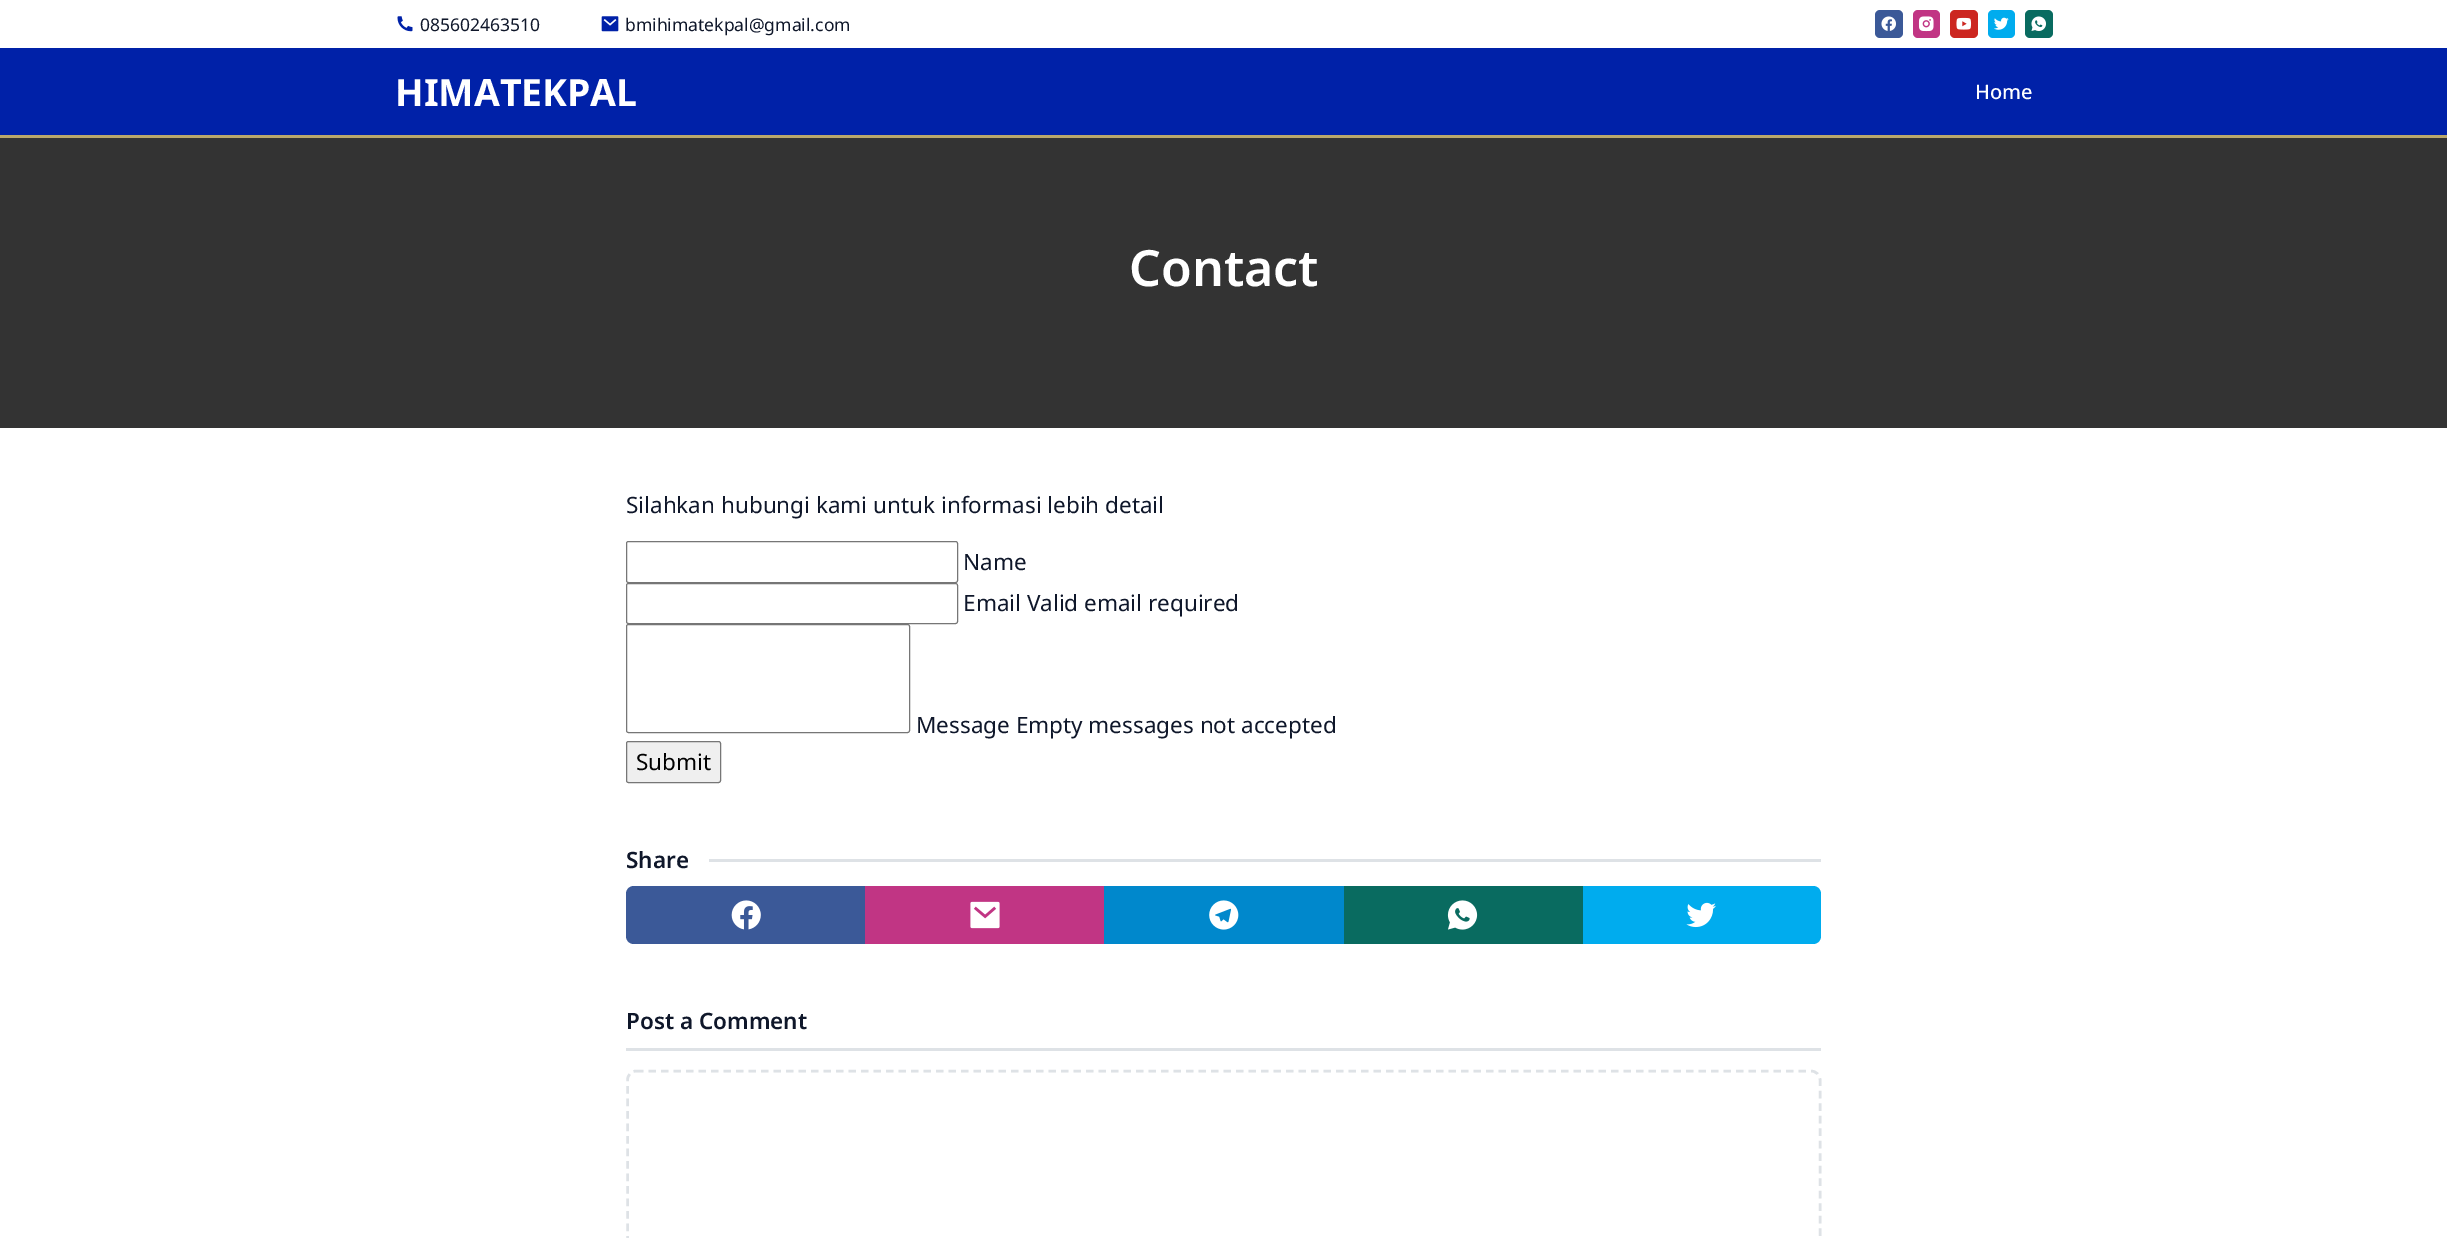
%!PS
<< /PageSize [2447 1238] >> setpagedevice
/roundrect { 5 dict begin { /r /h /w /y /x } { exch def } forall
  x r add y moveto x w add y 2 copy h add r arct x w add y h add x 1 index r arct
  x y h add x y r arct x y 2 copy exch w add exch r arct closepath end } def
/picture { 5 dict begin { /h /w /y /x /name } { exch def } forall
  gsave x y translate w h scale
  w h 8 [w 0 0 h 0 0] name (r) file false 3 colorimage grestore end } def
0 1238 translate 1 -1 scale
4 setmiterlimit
1 setgray
0 0 2447 1238 rectfill
(img1.rgb) 397 16 16 16 picture
/NotoSans-Regular [17.5 0 0 -17.5 0 0] selectfont
0.059 0.09 0.165 setrgbcolor
420 31 moveto (085602463510) show
(img2.rgb) 601 16 18 16 picture
625 31 moveto (bmihimatekpal@gmail.com) show
0.231 0.349 0.596 setrgbcolor
1875 10 28 28 5 roundrect fill
(img3.rgb) 1881 16 15 15 picture
0.757 0.208 0.518 setrgbcolor
1913 10 27 28 5 roundrect fill
(img4.rgb) 1918 16 16 16 picture
0.8 0.149 0.125 setrgbcolor
1950 10 28 28 5 roundrect fill
(img5.rgb) 1956 17 16 13 picture
0 0.675 0.933 setrgbcolor
1988 10 27 28 5 roundrect fill
(img6.rgb) 1994 17 15 13 picture
0.035 0.42 0.376 setrgbcolor
2025 10 28 28 5 roundrect fill
(img7.rgb) 2031 16 15 15 picture
0 0.129 0.659 setrgbcolor
0 48 2447 87 rectfill
0.725 0.655 0.42 setrgbcolor
0 135 2447 3 rectfill
/NotoSans-Bold [37.5 0 0 -37.5 0 0] selectfont
1 setgray
395 106 moveto (HIMATEKPAL) show
/NotoSans-Medium [20 0 0 -20 0 0] selectfont
1975 99 moveto (Home) show
0.2 setgray
0 138 2447 290 rectfill
/NotoSans-SemiBold [50 0 0 -50 0 0] selectfont
1 setgray
1129 286 moveto (Contact) show
/NotoSans-Regular [22.5 0 0 -22.5 0 0] selectfont
0.059 0.09 0.165 setrgbcolor
626 513 moveto (Silahkan hubungi kami untuk informasi lebih detail) show
0.463 setgray
626.5 541.5 331 41 2 roundrect stroke
0.059 0.09 0.165 setrgbcolor
963 570 moveto (Name) show
0.463 setgray
626.5 583.5 331 40 2 roundrect stroke
0.059 0.09 0.165 setrgbcolor
963 611 moveto (Email Valid email required) show
0.463 setgray
626.5 624.5 283 108 2 roundrect stroke
0.059 0.09 0.165 setrgbcolor
916 733 moveto (Message Empty messages not accepted) show
0.937 setgray
626.5 741.5 94 41 2 roundrect gsave fill grestore
0.463 setgray
stroke
0 setgray
636 770 moveto (Submit) show
/NotoSans-SemiBold [22.5 0 0 -22.5 0 0] selectfont
0.059 0.09 0.165 setrgbcolor
626 868 moveto (Share) show
0.871 0.886 0.902 setrgbcolor
709 859 1112 3 rectfill
0.231 0.349 0.596 setrgbcolor
newpath 634 886 moveto 865 886 lineto 865 944 lineto 634 944 lineto 629.5 944 626 940.5 626 936 curveto 626 894 lineto 626 889.5 629.5 886 634 886 curveto closepath fill
(img8.rgb) 731 900 30 30 picture
0.757 0.208 0.518 setrgbcolor
865 886 239 58 rectfill
(img9.rgb) 970 901 30 28 picture
0 0.533 0.8 setrgbcolor
1104 886 240 58 rectfill
(img10.rgb) 1209 900 30 30 picture
0.035 0.42 0.376 setrgbcolor
1344 886 239 58 rectfill
(img11.rgb) 1447 900 31 30 picture
0 0.675 0.933 setrgbcolor
newpath 1583 886 moveto 1813 886 lineto 1817.5 886 1821 889.5 1821 894 curveto 1821 936 lineto 1821 940.5 1817.5 944 1813 944 curveto 1583 944 lineto closepath fill
(img12.rgb) 1686 902 30 26 picture
0.871 0.886 0.902 setrgbcolor
626 1048 1195 3 rectfill
0.059 0.09 0.165 setrgbcolor
626 1029 moveto (Post a Comment) show
0.871 0.886 0.902 setrgbcolor
2.5 setlinewidth
[7.5 5] 0 setdash
newpath 636 1071 moveto 1811 1071 lineto 1816 1071 1820 1075 1820 1080 curveto 1820 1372.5 lineto 1820 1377.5 1816 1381 1811 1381 curveto 636 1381 lineto 631.5 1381 627.5 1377.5 627.5 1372.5 curveto 627.5 1080 lineto 627.5 1075 631.5 1071 636 1071 curveto closepath stroke
showpage
